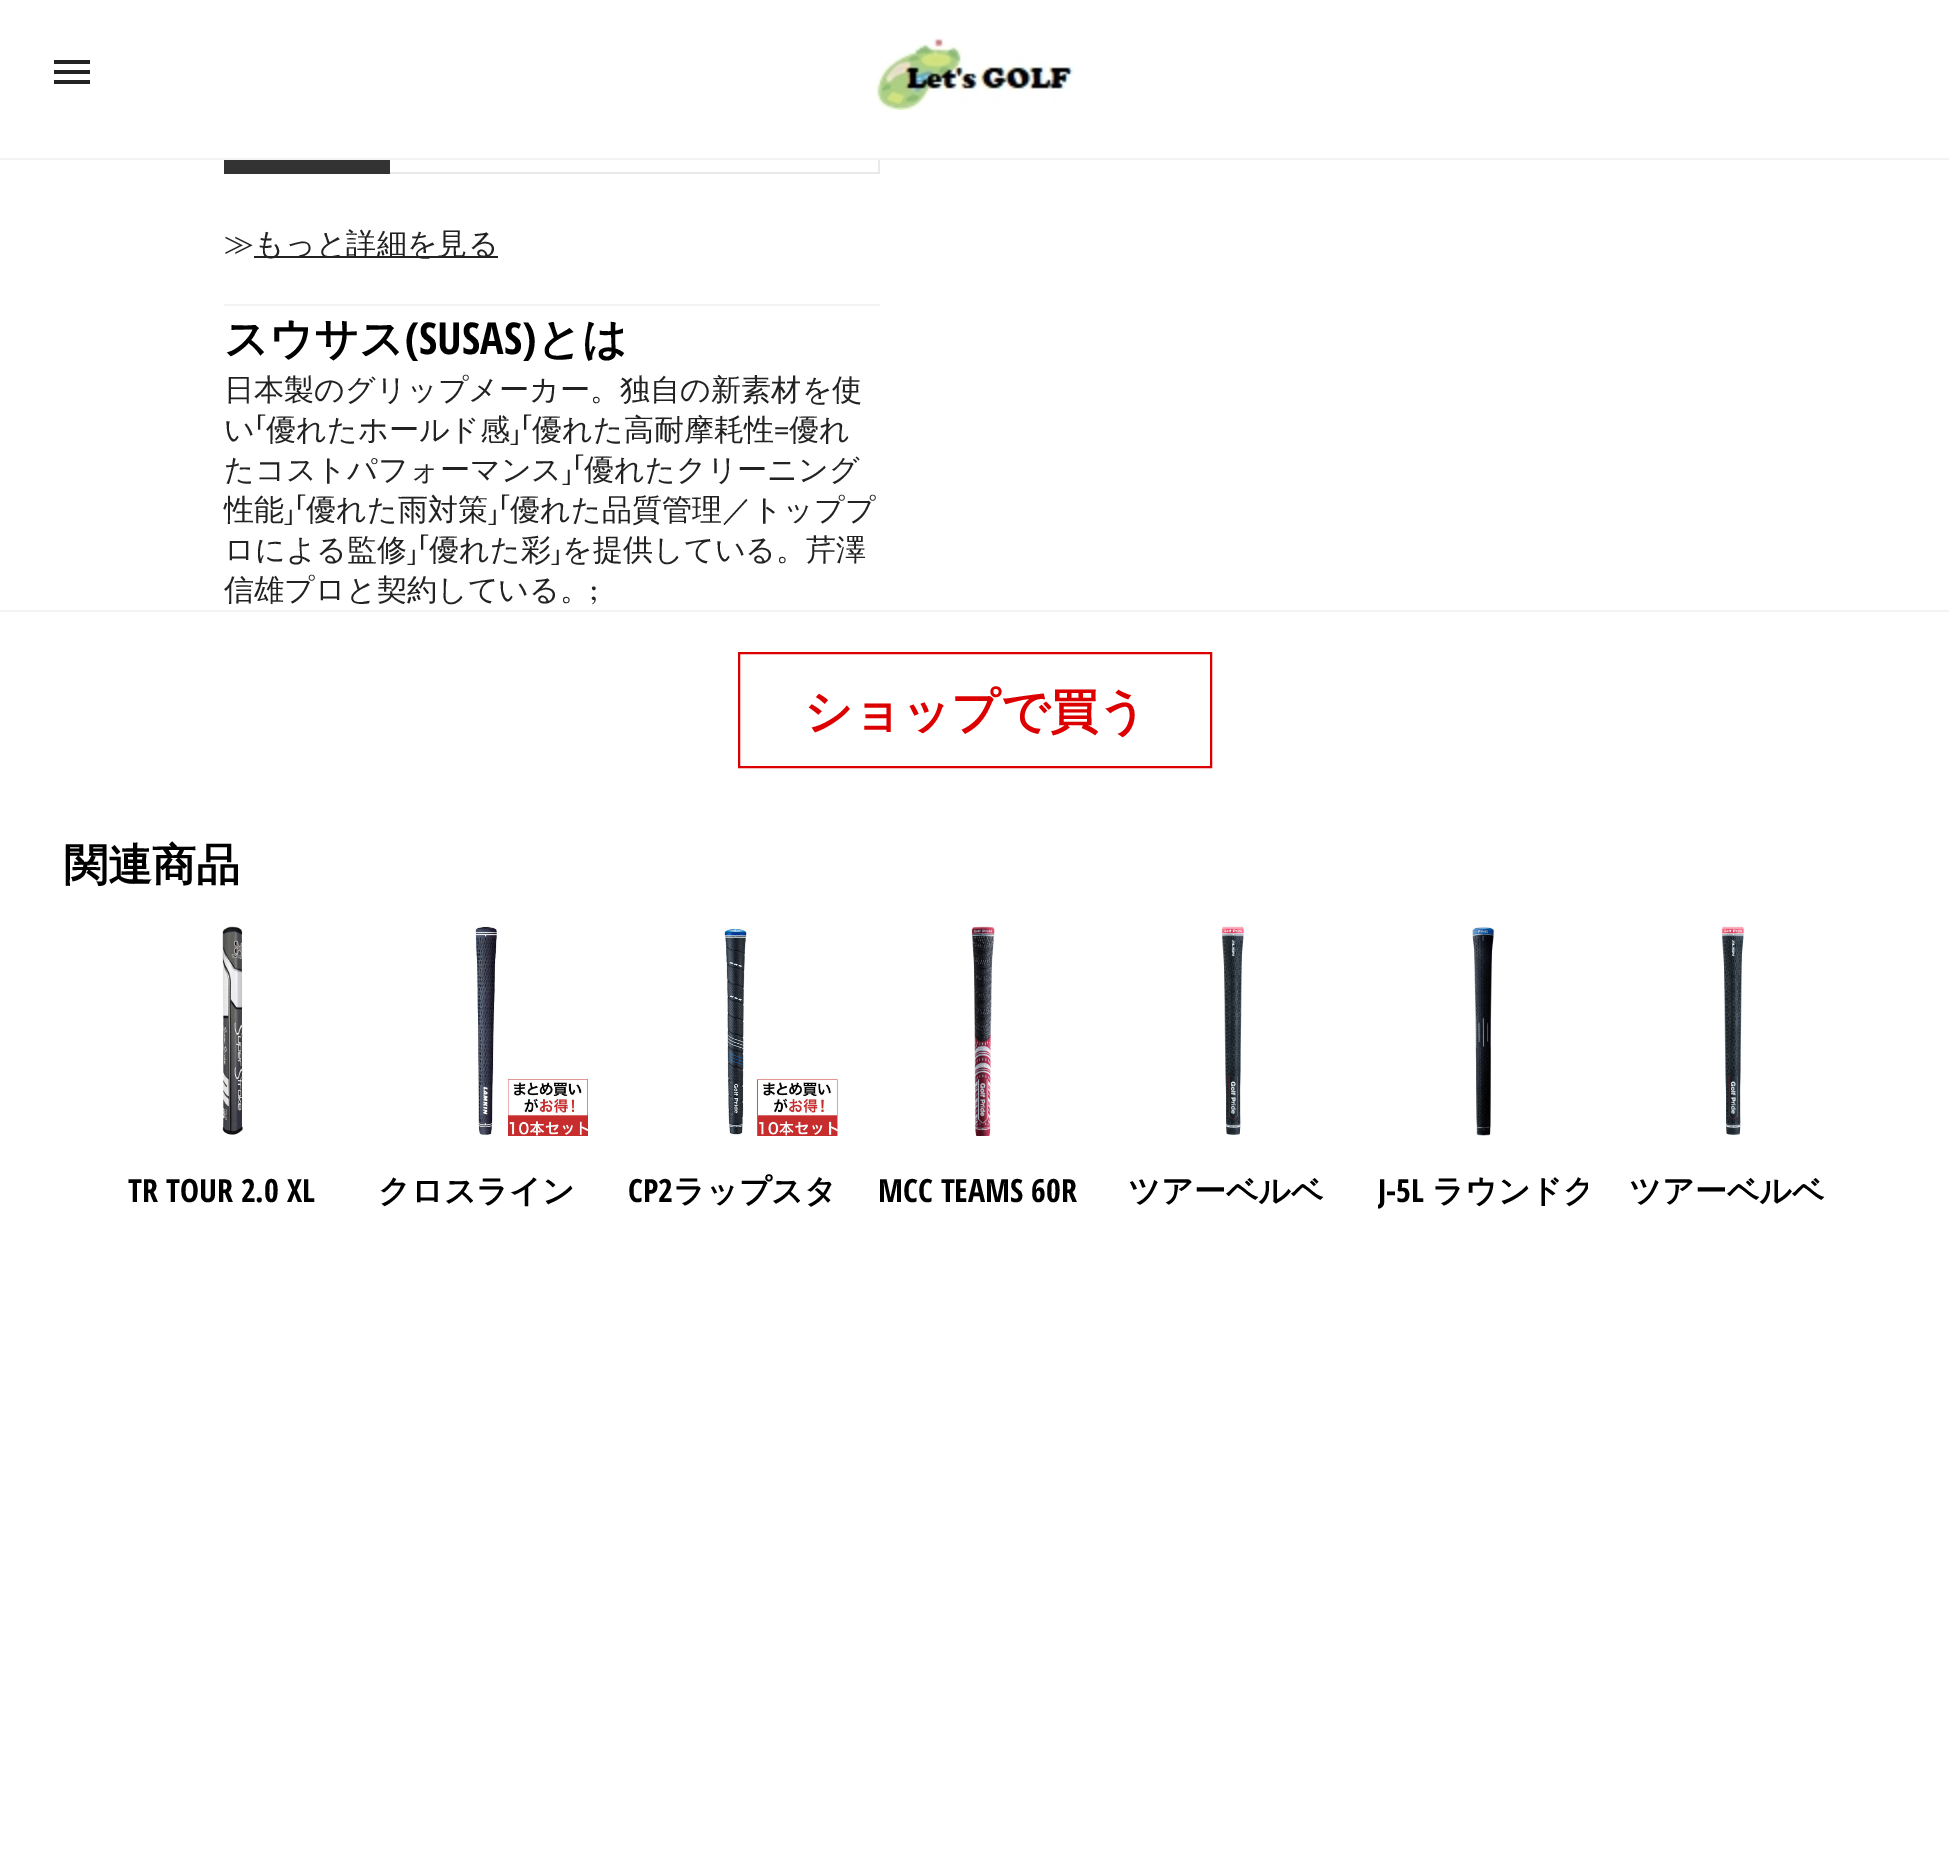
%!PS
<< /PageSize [1949 1849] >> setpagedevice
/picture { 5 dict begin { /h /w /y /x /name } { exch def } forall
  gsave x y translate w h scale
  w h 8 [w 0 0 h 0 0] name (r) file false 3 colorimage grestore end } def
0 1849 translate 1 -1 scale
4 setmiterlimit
1 setgray
0 0 1949 1849 rectfill
0.953 setgray
0 158 1949 2 rectfill
0.133 setgray
newpath 54 84 moveto 90 84 lineto 90 80 lineto 54 80 lineto closepath 54 74 moveto 90 74 lineto 90 70 lineto 54 70 lineto closepath 54 60 moveto 54 64 lineto 90 64 lineto 90 60 lineto closepath fill
(img1.rgb) 876 38 198 72 picture
0.2 setgray
226 160 162 12 rectfill
0.914 setgray
878 160 2 14 rectfill
388 172 492 2 rectfill
0.2 setgray
388 160 2 14 rectfill
224 172 166 2 rectfill
224 160 2 14 rectfill
/WenQuanYiZenHei-Medium [30.1 0 0 -30.1 0 0] selectfont
0.133 setgray
224 254 moveto (≫) show
254 256 244 2 rectfill
254 254 moveto (もっと詳細を見る) show
0.953 setgray
224 304 656 2 rectfill
/WenQuanYiZenHei-Bold [44 0 0 -44 0 0] selectfont
0 setgray
224 354 moveto (スウサス) show
/OpenSansCondensed-Bold [44 0 0 -44 0 0] selectfont
405 354 moveto (\(SUSAS\)) show
/WenQuanYiZenHei-Bold [44 0 0 -44 0 0] selectfont
537 354 moveto (とは) show
/WenQuanYiZenHei-Medium [30.1 0 0 -30.1 0 0] selectfont
0.133 setgray
224 400 moveto (日本製のグリップメーカー。独自の新素材を使) show
224 440 moveto (い) show
/Cardo-Regular [30.1 0 0 -30.1 0 0] selectfont
255 440 moveto (「) show
/WenQuanYiZenHei-Medium [30.1 0 0 -30.1 0 0] selectfont
266 440 moveto (優れたホールド感) show
/Cardo-Regular [30.1 0 0 -30.1 0 0] selectfont
510 440 moveto (」「) show
/WenQuanYiZenHei-Medium [30.1 0 0 -30.1 0 0] selectfont
532 440 moveto (優れた高耐摩耗性) show
/Cardo-Regular [30.1 0 0 -30.1 0 0] selectfont
774 440 moveto (=) show
/WenQuanYiZenHei-Medium [30.1 0 0 -30.1 0 0] selectfont
789 440 moveto (優れ) show
224 480 moveto (たコストパフォーマンス) show
/Cardo-Regular [30.1 0 0 -30.1 0 0] selectfont
562 480 moveto (」「) show
/WenQuanYiZenHei-Medium [30.1 0 0 -30.1 0 0] selectfont
584 480 moveto (優れたクリーニング) show
224 520 moveto (性能) show
/Cardo-Regular [30.1 0 0 -30.1 0 0] selectfont
284 520 moveto (」「) show
/WenQuanYiZenHei-Medium [30.1 0 0 -30.1 0 0] selectfont
306 520 moveto (優れた雨対策) show
/Cardo-Regular [30.1 0 0 -30.1 0 0] selectfont
488 520 moveto (」「) show
/WenQuanYiZenHei-Medium [30.1 0 0 -30.1 0 0] selectfont
510 520 moveto (優れた品質管理／トッププ) show
224 560 moveto (ロによる監修) show
/Cardo-Regular [30.1 0 0 -30.1 0 0] selectfont
407 560 moveto (」「) show
/WenQuanYiZenHei-Medium [30.1 0 0 -30.1 0 0] selectfont
429 560 moveto (優れた彩) show
/Cardo-Regular [30.1 0 0 -30.1 0 0] selectfont
551 560 moveto (」) show
/WenQuanYiZenHei-Medium [30.1 0 0 -30.1 0 0] selectfont
562 560 moveto (を提供している。芹澤) show
224 600 moveto (信雄プロと契約している。) show
/Cardo-Regular [30.1 0 0 -30.1 0 0] selectfont
590 600 moveto (;) show
0.953 setgray
0 610 1949 2 rectfill
0.867 0 0 setrgbcolor
2 setlinewidth
739 653 472 114 rectstroke
/WenQuanYiZenHei-Bold [48 0 0 -48 0 0] selectfont
804 728 moveto (ショップで買う) show
/WenQuanYiZenHei-Bold [44 0 0 -44 0 0] selectfont
0 setgray
64 880 moveto (関連商品) show
(img2.rgb) 222 926 21 209 picture
/OpenSansCondensed-Bold [32 0 0 -32 0 0] selectfont
128 1202 moveto (TR TOUR 2.0 XL) show
(img3.rgb) 475 926 113 210 picture
/WenQuanYiZenHei-Bold [32 0 0 -32 0 0] selectfont
378 1202 moveto -1 0 32 (クロスライン) widthshow
(img4.rgb) 723 928 115 208 picture
/OpenSansCondensed-Bold [32 0 0 -32 0 0] selectfont
628 1202 moveto (CP2) show
/WenQuanYiZenHei-Bold [32 0 0 -32 0 0] selectfont
673 1202 moveto -1 0 32 (ラップスタ) widthshow
(img5.rgb) 971 926 24 210 picture
/OpenSansCondensed-Bold [32 0 0 -32 0 0] selectfont
878 1202 moveto (MCC TEAMS 60R) show
(img6.rgb) 1221 926 24 210 picture
/WenQuanYiZenHei-Bold [32 0 0 -32 0 0] selectfont
1128 1202 moveto -1 0 32 (ツアーベルベ) widthshow
(img7.rgb) 1472 927 23 209 picture
gsave
1378 926 210 288 rectclip
/OpenSansCondensed-Bold [32 0 0 -32 0 0] selectfont
1378 1202 moveto (J-5L) show
/WenQuanYiZenHei-Bold [32 0 0 -32 0 0] selectfont
1432 1202 moveto (ラウンドグ) show
grestore
(img6.rgb) 1721 926 24 210 picture
1629 1202 moveto -1 0 32 (ツアーベルベ) widthshow
showpage
